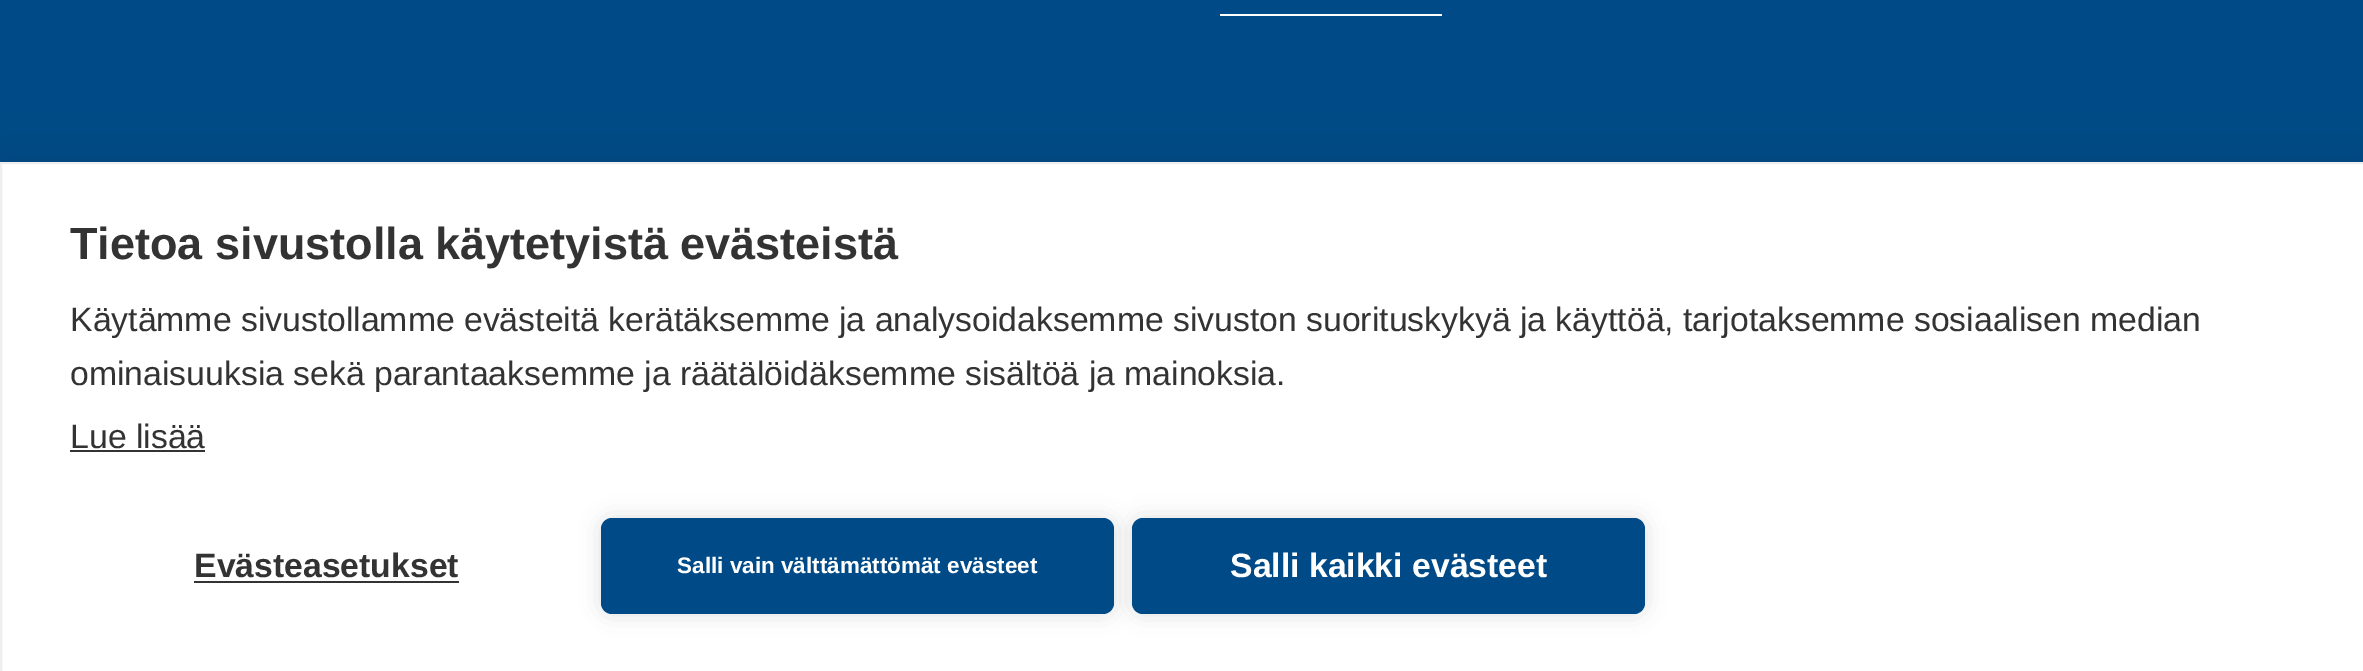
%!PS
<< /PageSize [2363 671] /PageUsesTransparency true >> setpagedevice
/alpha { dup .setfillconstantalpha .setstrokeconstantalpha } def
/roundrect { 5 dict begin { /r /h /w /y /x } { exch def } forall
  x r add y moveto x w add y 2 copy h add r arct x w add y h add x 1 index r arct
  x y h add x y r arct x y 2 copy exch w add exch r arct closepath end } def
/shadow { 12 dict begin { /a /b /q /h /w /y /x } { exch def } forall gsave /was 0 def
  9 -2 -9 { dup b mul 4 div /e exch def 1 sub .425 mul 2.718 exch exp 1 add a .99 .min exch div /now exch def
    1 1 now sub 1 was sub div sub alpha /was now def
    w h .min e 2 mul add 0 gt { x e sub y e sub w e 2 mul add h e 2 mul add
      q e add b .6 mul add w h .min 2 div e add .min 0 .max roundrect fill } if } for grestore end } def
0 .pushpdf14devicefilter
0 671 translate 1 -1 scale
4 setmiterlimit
0 0.294 0.529 setrgbcolor
0 0 2363 671 rectfill
1 setgray
1220 14 222 2 rectfill
0 setgray
0 162 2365 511 0 22.5 0.1 shadow
1 setgray
newpath 1 163 moveto 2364 163 lineto 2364 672 lineto 1 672 lineto closepath gsave fill grestore
0.933 setgray
2 setlinewidth
stroke
/LiberationSans-Bold [45 0 0 -45 0 0] selectfont
0.2 setgray
70 259 moveto (Tietoa sivustolla käytetyistä evästeistä) show
/LiberationSans-Regular [33.75 0 0 -33.75 0 0] selectfont
70 331 moveto (Käytämme sivustollamme evästeitä kerätäksemme ja analysoidaksemme sivuston suorituskykyä ja käyttöä, tarjotaksemme sosiaalisen median) show
70 385 moveto (ominaisuuksia sekä parantaaksemme ja räätälöidäksemme sisältöä ja mainoksia.) show
70 448 moveto (Lue lisää) show
70 450 135 2 rectfill
/LiberationSans-Bold [33.75 0 0 -33.75 0 0] selectfont
194 577 moveto (Evästeasetukset) show
194 581 265 2 rectfill
0 setgray
601 518 513 96 11 11 0.12 shadow
0 0.294 0.529 setrgbcolor
601 518 513 96 11 roundrect fill
/LiberationSans-Bold [22.5 0 0 -22.5 0 0] selectfont
1 setgray
677 573 moveto (Salli vain välttämättömät evästeet) show
0 setgray
1132 518 513 96 11 11 0.12 shadow
0 0.294 0.529 setrgbcolor
1132 518 513 96 11 roundrect fill
/LiberationSans-Bold [33.75 0 0 -33.75 0 0] selectfont
1 setgray
1230 577 moveto (Salli kaikki evästeet) show
.poppdf14devicefilter showpage
